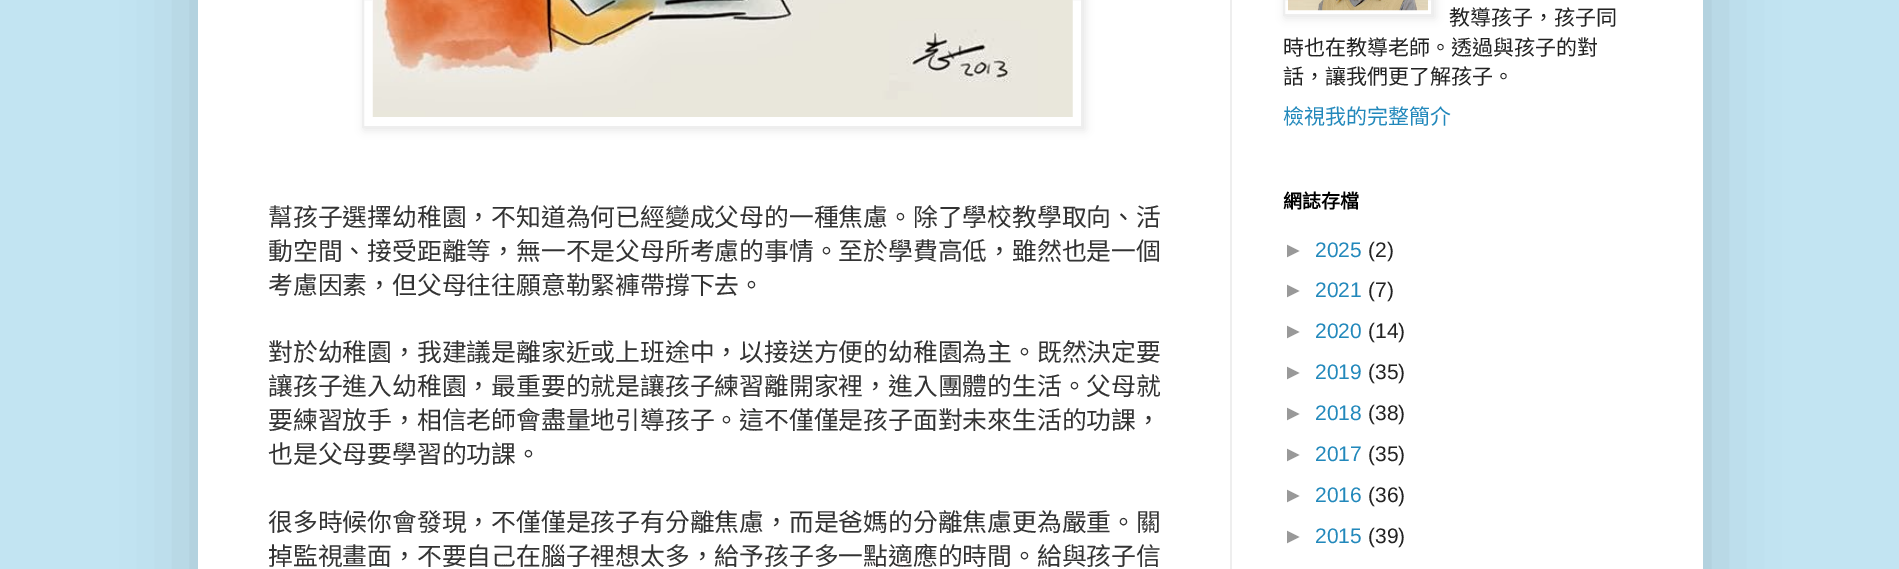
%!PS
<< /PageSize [1899 569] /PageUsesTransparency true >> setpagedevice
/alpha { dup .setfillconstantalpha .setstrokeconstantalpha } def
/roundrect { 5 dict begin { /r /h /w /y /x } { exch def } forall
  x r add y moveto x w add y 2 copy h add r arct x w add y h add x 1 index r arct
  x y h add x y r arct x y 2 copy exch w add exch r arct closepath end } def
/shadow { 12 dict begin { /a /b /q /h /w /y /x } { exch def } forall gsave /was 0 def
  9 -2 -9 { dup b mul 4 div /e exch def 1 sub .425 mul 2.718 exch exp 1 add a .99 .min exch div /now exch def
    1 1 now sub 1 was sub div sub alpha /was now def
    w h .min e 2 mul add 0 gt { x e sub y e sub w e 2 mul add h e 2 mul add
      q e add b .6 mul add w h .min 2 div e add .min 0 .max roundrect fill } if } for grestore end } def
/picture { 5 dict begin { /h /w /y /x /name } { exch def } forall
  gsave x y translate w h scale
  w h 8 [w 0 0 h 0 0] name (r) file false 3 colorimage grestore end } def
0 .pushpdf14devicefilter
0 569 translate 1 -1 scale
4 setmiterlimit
0.761 0.894 0.949 setrgbcolor
0 0 1899 569 rectfill
0 setgray
198 -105 1505 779 0 35 0.15 shadow
1 setgray
198 0 1505 569 rectfill
0.933 setgray
1230 0 2 569 rectfill
0 setgray
364 -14 721 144 0 4.5 0.1 shadow
1 setgray
newpath 363 -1 moveto 1082 -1 lineto 1082 127 lineto 363 127 lineto closepath gsave fill grestore
0.933 setgray
2 setlinewidth
stroke
(img1.rgb) 372 0 701 117 picture
/NotoSansCJKTC-Regular [24.8 0 0 -24.8 0 0] selectfont
0.2 setgray
268 226 moveto (幫孩子選擇幼稚園，不知道為何已經變成父母的一種焦慮。除了學校教學取向、活) show
268 260 moveto (動空間、接受距離等，無一不是父母所考慮的事情。至於學費高低，雖然也是一個) show
268 294 moveto (考慮因素，但父母往往願意勒緊褲帶撐下去。) show
268 361 moveto (對於幼稚園，我建議是離家近或上班途中，以接送方便的幼稚園為主。既然決定要) show
268 395 moveto (讓孩子進入幼稚園，最重要的就是讓孩子練習離開家裡，進入團體的生活。父母就) show
268 429 moveto (要練習放手，相信老師會盡量地引導孩子。這不僅僅是孩子面對未來生活的功課，) show
268 463 moveto (也是父母要學習的功課。) show
268 531 moveto (很多時候你會發現，不僅僅是孩子有分離焦慮，而是爸媽的分離焦慮更為嚴重。關) show
268 565 moveto (掉監視畫面，不要自己在腦子裡想太多，給予孩子多一點適應的時間。給與孩子信) show
0 setgray
1285 -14 150 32 0 4.5 0.1 shadow
1 setgray
newpath 1284 -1 moveto 1432 -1 lineto 1432 15 lineto 1284 15 lineto closepath gsave fill grestore
0.933 setgray
stroke
(img2.rgb) 1288 0 140 11 picture
/NotoSansCJKTC-Regular [21 0 0 -21 0 0] selectfont
0.133 setgray
1449 25 moveto (教導孩子，孩子同) show
1283 55 moveto (時也在教導老師。透過與孩子的對) show
1283 84 moveto (話，讓我們更了解孩子。) show
0.133 0.533 0.733 setrgbcolor
1283 124 moveto (檢視我的完整簡介) show
/NotoSansCJKTC-Bold [19 0 0 -19 0 0] selectfont
0 setgray
1283 208 moveto (網誌存檔) show
/LiberationSans-Regular [21 0 0 -21 0 0] selectfont
0.6 setgray
1283 257 moveto (►) show
0.133 0.533 0.733 setrgbcolor
1315 257 moveto (2025) show
0.133 setgray
1368 257 moveto (\(2\)) show
0.6 setgray
1283 297 moveto (►) show
0.133 0.533 0.733 setrgbcolor
1315 297 moveto (2021) show
0.133 setgray
1368 297 moveto (\(7\)) show
0.6 setgray
1283 338 moveto (►) show
0.133 0.533 0.733 setrgbcolor
1315 338 moveto (2020) show
0.133 setgray
1368 338 moveto (\(14\)) show
0.6 setgray
1283 379 moveto (►) show
0.133 0.533 0.733 setrgbcolor
1315 379 moveto (2019) show
0.133 setgray
1368 379 moveto (\(35\)) show
0.6 setgray
1283 420 moveto (►) show
0.133 0.533 0.733 setrgbcolor
1315 420 moveto (2018) show
0.133 setgray
1368 420 moveto (\(38\)) show
0.6 setgray
1283 461 moveto (►) show
0.133 0.533 0.733 setrgbcolor
1315 461 moveto (2017) show
0.133 setgray
1368 461 moveto (\(35\)) show
0.6 setgray
1283 502 moveto (►) show
0.133 0.533 0.733 setrgbcolor
1315 502 moveto (2016) show
0.133 setgray
1368 502 moveto (\(36\)) show
0.6 setgray
1283 543 moveto (►) show
0.133 0.533 0.733 setrgbcolor
1315 543 moveto (2015) show
0.133 setgray
1368 543 moveto (\(39\)) show
.poppdf14devicefilter showpage
